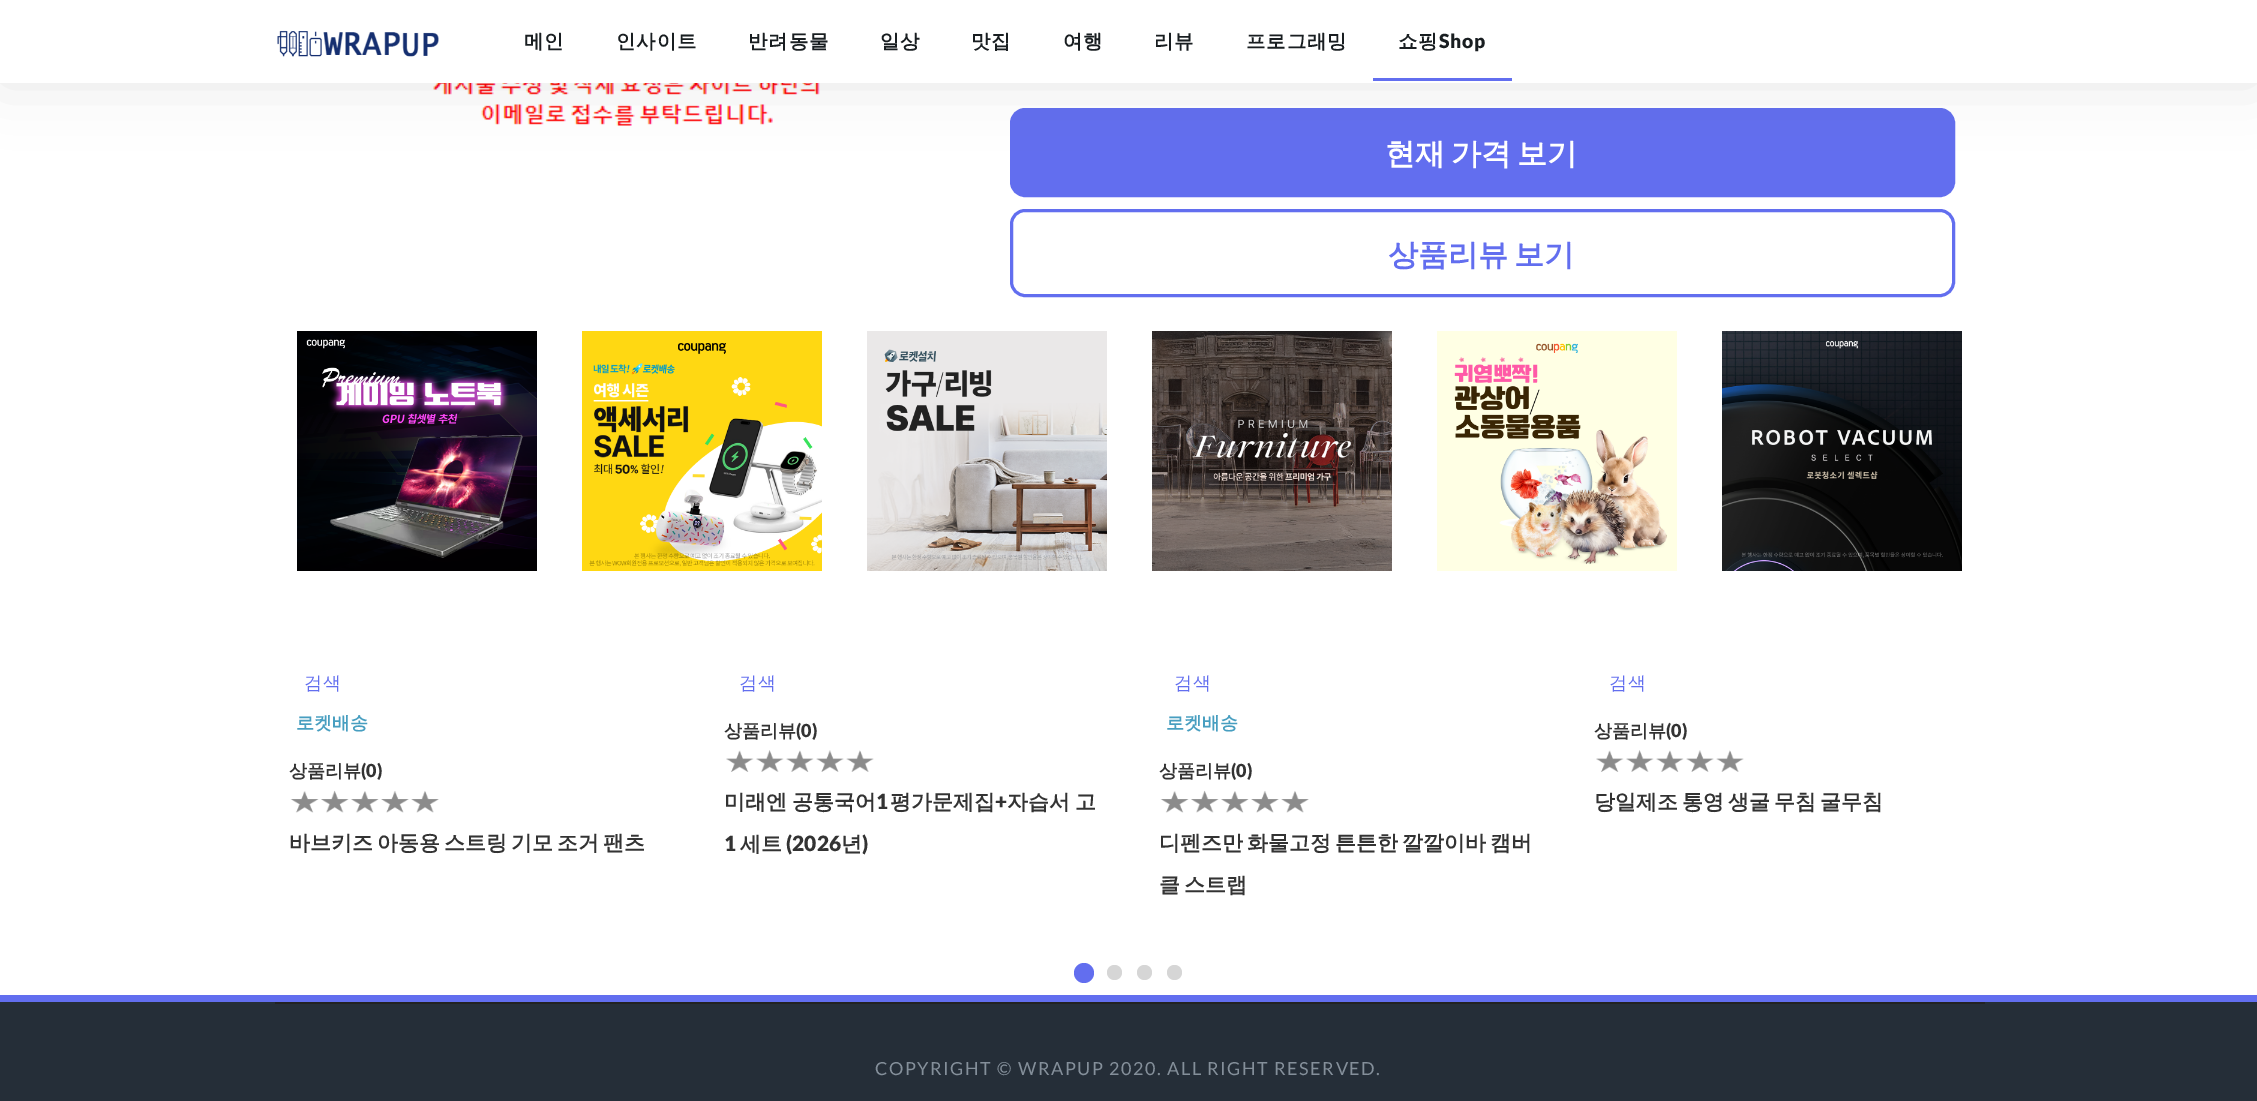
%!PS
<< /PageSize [2257 1101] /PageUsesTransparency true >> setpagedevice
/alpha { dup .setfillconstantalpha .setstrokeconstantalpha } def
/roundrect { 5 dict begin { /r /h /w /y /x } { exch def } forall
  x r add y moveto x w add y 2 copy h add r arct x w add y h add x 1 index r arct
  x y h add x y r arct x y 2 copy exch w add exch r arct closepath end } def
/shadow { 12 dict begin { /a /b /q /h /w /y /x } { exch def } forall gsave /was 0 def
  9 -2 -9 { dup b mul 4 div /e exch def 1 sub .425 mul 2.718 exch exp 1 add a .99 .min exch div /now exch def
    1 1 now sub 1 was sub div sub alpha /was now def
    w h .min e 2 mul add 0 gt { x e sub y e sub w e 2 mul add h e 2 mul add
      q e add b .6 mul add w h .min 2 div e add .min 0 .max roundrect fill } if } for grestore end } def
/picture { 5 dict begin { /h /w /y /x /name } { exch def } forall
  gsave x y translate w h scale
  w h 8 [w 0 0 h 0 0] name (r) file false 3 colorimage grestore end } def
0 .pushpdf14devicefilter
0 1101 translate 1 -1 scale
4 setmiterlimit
1 setgray
0 0 2257 1101 rectfill
(img2.rgb) 433 83 387 43 picture
0.384 0.431 0.937 setrgbcolor
1011.5 109.5 942 86 13.5 roundrect gsave fill grestore
3 setlinewidth
stroke
0 setgray
0 0 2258 83 0 30 0.1 shadow
1 setgray
0 0 2257 83 rectfill
(img1.rgb) 277 30 162 27 picture
/WenQuanYiZenHei-Bold [19.5 0 0 -19.5 0 0] selectfont
0.098 0.118 0.129 setrgbcolor
524 48 moveto 0.75 0 (메인) ashow
616 48 moveto 0.75 0 (인사이트) ashow
748 48 moveto 0.75 0 (반려동물) ashow
880 48 moveto 0.75 0 (일상) ashow
971 48 moveto 0.75 0 (맛집) ashow
1063 48 moveto 0.75 0 (여행) ashow
1154 48 moveto 0.75 0 (리뷰) ashow
1246 48 moveto 0.75 0 (프로그래밍) ashow
1398 48 moveto 0.75 0 (쇼핑) ashow
/Lato-Black [19.5 0 0 -19.5 0 0] selectfont
1439 48 moveto 0.75 0 (Shop) ashow
0.384 0.431 0.937 setrgbcolor
1373 78 139 3 rectfill
/WenQuanYiZenHei-Bold [30 0 0 -30 0 0] selectfont
1 setgray
1385 164 moveto -3 0 32 (현재 가격 보기) widthshow
0.384 0.431 0.937 setrgbcolor
1011.5 210.5 942 85 13.5 roundrect stroke
1388 265 moveto -3 0 32 (상품리뷰 보기) widthshow
(img3.rgb) 297 331 240 240 picture
(img4.rgb) 582 331 240 240 picture
(img5.rgb) 867 331 240 240 picture
(img6.rgb) 1152 331 240 240 picture
(img7.rgb) 1437 331 240 240 picture
(img8.rgb) 1722 331 240 240 picture
/WenQuanYiZenHei-Medium [18 0 0 -18 0 0] selectfont
304 689 moveto 0.75 0 (검색) ashow
/WenQuanYiZenHei-Bold [18 0 0 -18 0 0] selectfont
0.278 0.62 0.753 setrgbcolor
296 729 moveto (로켓배송) show
0.2 setgray
289 777 moveto (상품리뷰) show
/Lato-Black [18 0 0 -18 0 0] selectfont
361 777 moveto (\(0\)) show
(img9.rgb) 290 790 149 23 picture
/WenQuanYiZenHei-Bold [21 0 0 -21 0 0] selectfont
289 850 moveto -2.25 0 32 (바브키즈 아동용 스트링 기모 조거 팬츠) widthshow
/WenQuanYiZenHei-Medium [18 0 0 -18 0 0] selectfont
0.384 0.431 0.937 setrgbcolor
739 689 moveto 0.75 0 (검색) ashow
/WenQuanYiZenHei-Bold [18 0 0 -18 0 0] selectfont
0.2 setgray
724 737 moveto (상품리뷰) show
/Lato-Black [18 0 0 -18 0 0] selectfont
796 737 moveto (\(0\)) show
(img10.rgb) 726 750 148 22 picture
/WenQuanYiZenHei-Bold [21 0 0 -21 0 0] selectfont
724 809 moveto -1 0 32 (미래엔 공통국어) widthshow
/Lato-Black [21 0 0 -21 0 0] selectfont
876 809 moveto (1) show
/WenQuanYiZenHei-Bold [21 0 0 -21 0 0] selectfont
890 809 moveto (평가문제집) show
/Lato-Black [21 0 0 -21 0 0] selectfont
995 809 moveto (+) show
/WenQuanYiZenHei-Bold [21 0 0 -21 0 0] selectfont
1007 809 moveto -1 0 32 (자습서 고) widthshow
/Lato-Black [21 0 0 -21 0 0] selectfont
724 851 moveto (1) show
/WenQuanYiZenHei-Bold [21 0 0 -21 0 0] selectfont
740 851 moveto (세트) show
/Lato-Black [21 0 0 -21 0 0] selectfont
786 851 moveto (\(2026) show
/WenQuanYiZenHei-Bold [21 0 0 -21 0 0] selectfont
841 851 moveto (년) show
/Lato-Black [21 0 0 -21 0 0] selectfont
862 851 moveto (\)) show
/WenQuanYiZenHei-Medium [18 0 0 -18 0 0] selectfont
0.384 0.431 0.937 setrgbcolor
1174 689 moveto 0.75 0 (검색) ashow
/WenQuanYiZenHei-Bold [18 0 0 -18 0 0] selectfont
0.278 0.62 0.753 setrgbcolor
1166 729 moveto (로켓배송) show
0.2 setgray
1159 777 moveto (상품리뷰) show
/Lato-Black [18 0 0 -18 0 0] selectfont
1231 777 moveto (\(0\)) show
(img11.rgb) 1160 790 149 23 picture
/WenQuanYiZenHei-Bold [21 0 0 -21 0 0] selectfont
1159 850 moveto -2.25 0 32 (디펜즈만 화물고정 튼튼한 깔깔이바 캠버) widthshow
1159 892 moveto -2.25 0 32 (클 스트랩) widthshow
/WenQuanYiZenHei-Medium [18 0 0 -18 0 0] selectfont
0.384 0.431 0.937 setrgbcolor
1609 689 moveto 0.75 0 (검색) ashow
/WenQuanYiZenHei-Bold [18 0 0 -18 0 0] selectfont
0.2 setgray
1594 737 moveto (상품리뷰) show
/Lato-Black [18 0 0 -18 0 0] selectfont
1666 737 moveto (\(0\)) show
(img12.rgb) 1596 750 148 22 picture
/WenQuanYiZenHei-Bold [21 0 0 -21 0 0] selectfont
1594 809 moveto -2.25 0 32 (당일제조 통영 생굴 무침 굴무침) widthshow
0.384 0.431 0.937 setrgbcolor
newpath 1084 973 10 0 360 arc closepath fill
0.839 setgray
newpath 1114.5 972.5 7.5 0 360 arc closepath fill
newpath 1144.5 972.5 7.5 0 360 arc closepath fill
newpath 1174.5 972.5 7.5 0 360 arc closepath fill
0.145 0.18 0.22 setrgbcolor
0 1002 2257 99 rectfill
0.384 0.431 0.937 setrgbcolor
0 995 2257 7 rectfill
0.133 setgray
275 1002 1710 2 rectfill
/Lato-Regular [18 0 0 -18 0 0] selectfont
0.518 0.561 0.604 setrgbcolor
875 1075 moveto 1.5 0 (COPYRIGHT © WRAPUP 2020. ALL RIGHT RESERVED.) ashow
.poppdf14devicefilter showpage
